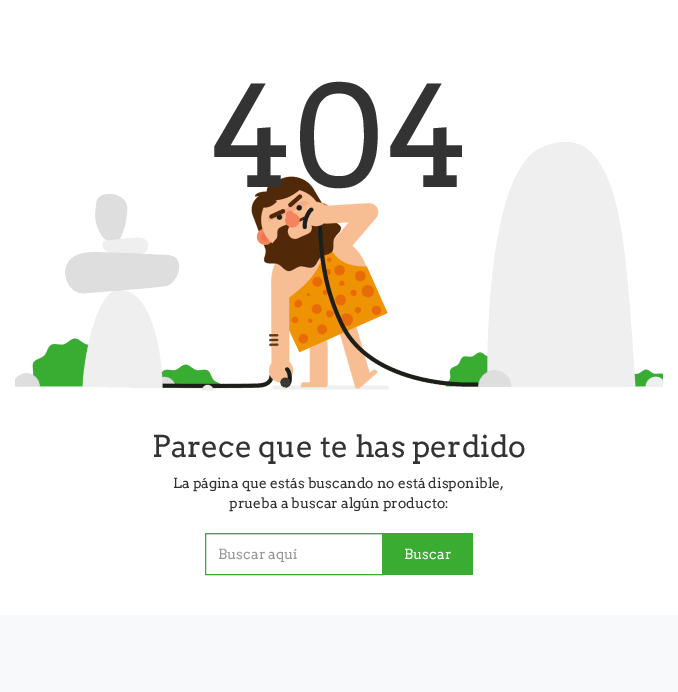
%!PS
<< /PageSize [678 692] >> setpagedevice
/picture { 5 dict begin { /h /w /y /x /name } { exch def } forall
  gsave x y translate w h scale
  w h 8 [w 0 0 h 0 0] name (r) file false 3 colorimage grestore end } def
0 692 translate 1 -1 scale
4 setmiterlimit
1 setgray
0 0 678 692 rectfill
(img1.rgb) 15 142 648 249 picture
/Arvo-Regular [140 0 0 -140 0 0] selectfont
0.2 setgray
208 187 moveto (404) show
/Arvo-Regular [30 0 0 -30 0 0] selectfont
152 457 moveto (Parece que te has perdido) show
/Arvo-Regular [14 0 0 -14 0 0] selectfont
173 488 moveto (La página que estás buscando no está disponible,) show
229 508 moveto (prueba a buscar algún producto:) show
0.925 setgray
206 534 176 1 rectfill
0.22 0.678 0.196 setrgbcolor
205.5 533.5 177 41 rectstroke
gsave
218 546 152 16 rectclip
0.6 setgray
218 559 moveto (Buscar aquí) show
grestore
0.224 0.675 0.192 setrgbcolor
383 533 90 42 rectfill
1 setgray
404 559 moveto (Buscar) show
0.973 0.976 0.98 setrgbcolor
0 615 678 77 rectfill
showpage
